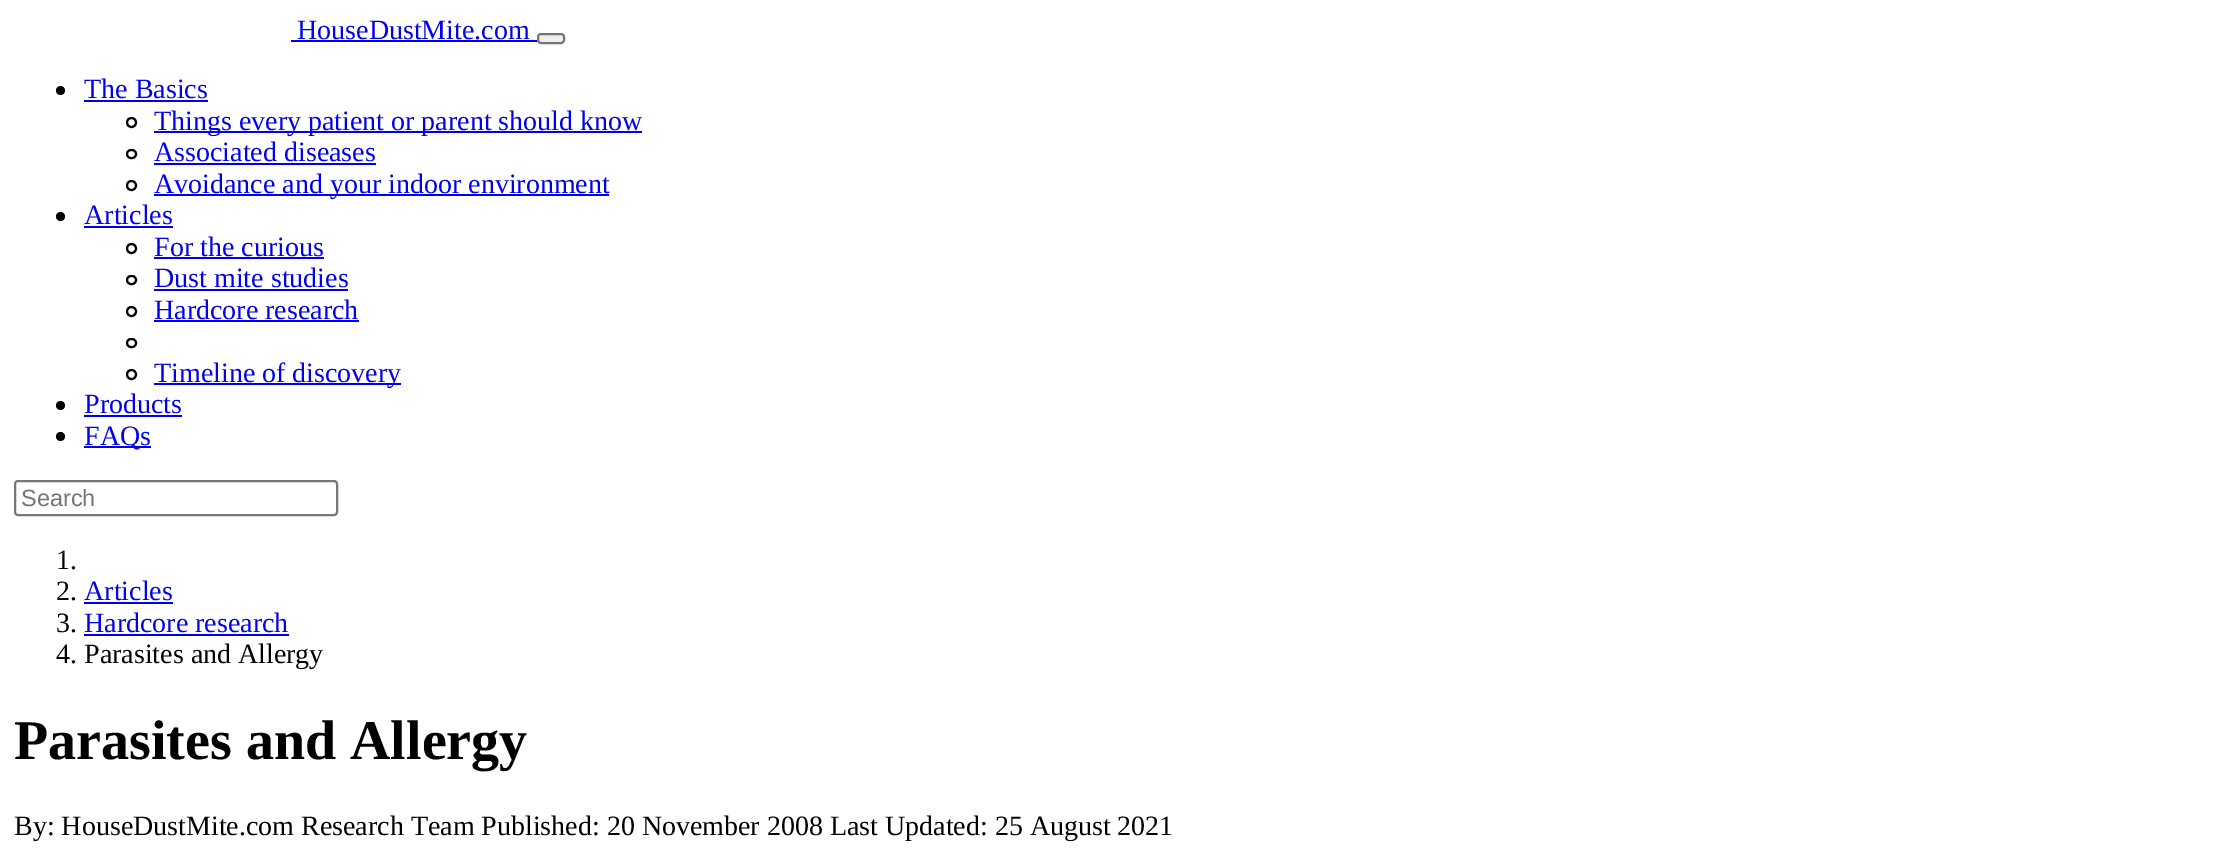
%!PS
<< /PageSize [2213 863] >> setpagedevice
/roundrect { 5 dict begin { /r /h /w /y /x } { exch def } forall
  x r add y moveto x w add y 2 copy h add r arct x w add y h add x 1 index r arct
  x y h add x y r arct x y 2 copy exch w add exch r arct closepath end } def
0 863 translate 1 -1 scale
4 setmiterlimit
1 setgray
0 0 2213 863 rectfill
/LiberationSerif-Regular [28 0 0 -28 0 0] selectfont
0 0 0.933 setrgbcolor
297 39 moveto (HouseDustMite.com) show
291 40 246 2 rectfill
0.937 setgray
538 34 26 9 3 roundrect gsave fill grestore
0.463 setgray
2 setlinewidth
stroke
0 setgray
newpath 60.5 90.5 4.5 0 360 arc closepath fill
0 0 0.933 setrgbcolor
84 98 moveto (The Basics) show
84 100 124 2 rectfill
0 setgray
newpath 131.5 122.5 4.5 0 360 arc closepath stroke
0 0 0.933 setrgbcolor
154 131 488 2 rectfill
154 130 moveto (Things every patient or parent should know) show
0 setgray
127 150 9 8 4 roundrect stroke
0 0 0.933 setrgbcolor
154 161 moveto (Associated diseases) show
154 163 222 2 rectfill
0 setgray
newpath 131.5 185.5 4.5 0 360 arc closepath stroke
0 0 0.933 setrgbcolor
154 194 455 2 rectfill
154 193 moveto (Avoidance and your indoor environment) show
0 setgray
newpath 60.5 216.5 4.5 0 360 arc closepath fill
0 0 0.933 setrgbcolor
84 224 moveto (Articles) show
84 226 89 2 rectfill
0 setgray
newpath 131.5 248.5 4.5 0 360 arc closepath stroke
0 0 0.933 setrgbcolor
154 256 moveto (For the curious) show
154 257 170 2 rectfill
0 setgray
127 276 9 8 4 roundrect stroke
0 0 0.933 setrgbcolor
154 287 moveto (Dust mite studies) show
154 289 194 2 rectfill
0 setgray
newpath 131.5 311.5 4.5 0 360 arc closepath stroke
0 0 0.933 setrgbcolor
154 319 moveto (Hardcore research) show
154 320 205 2 rectfill
0 setgray
127 339 9 8 4 roundrect stroke
newpath 131.5 374.5 4.5 0 360 arc closepath stroke
0 0 0.933 setrgbcolor
154 383 247 2 rectfill
154 382 moveto (Timeline of discovery) show
0 setgray
newpath 60.5 405.5 4.5 0 360 arc closepath fill
0 0 0.933 setrgbcolor
84 413 moveto (Products) show
84 415 98 2 rectfill
0 setgray
newpath 60.5 436.5 4.5 0 360 arc closepath fill
0 0 0.933 setrgbcolor
84 446 67 2 rectfill
84 445 moveto (FAQs) show
0.463 setgray
15 481 322 34 3 roundrect stroke
/LiberationSans-Regular [23.5 0 0 -23.5 0 0] selectfont
0.459 setgray
21 506 moveto (Search) show
/LiberationSerif-Regular [28 0 0 -28 0 0] selectfont
0 setgray
56 569 moveto (1.) show
56 600 moveto (2.) show
0 0 0.933 setrgbcolor
84 600 moveto (Articles) show
84 602 89 2 rectfill
0 setgray
56 632 moveto (3.) show
0 0 0.933 setrgbcolor
84 632 moveto (Hardcore research) show
84 634 205 2 rectfill
0 setgray
56 663 moveto (4. Parasites and Allergy) show
/LiberationSerif-Bold [56 0 0 -56 0 0] selectfont
14 759 moveto (Parasites and Allergy) show
/LiberationSerif-Regular [28 0 0 -28 0 0] selectfont
14 835 moveto (By: HouseDustMite.com Research Team Published: 20 November 2008 Last Updated: 25 August 2021) show
showpage
